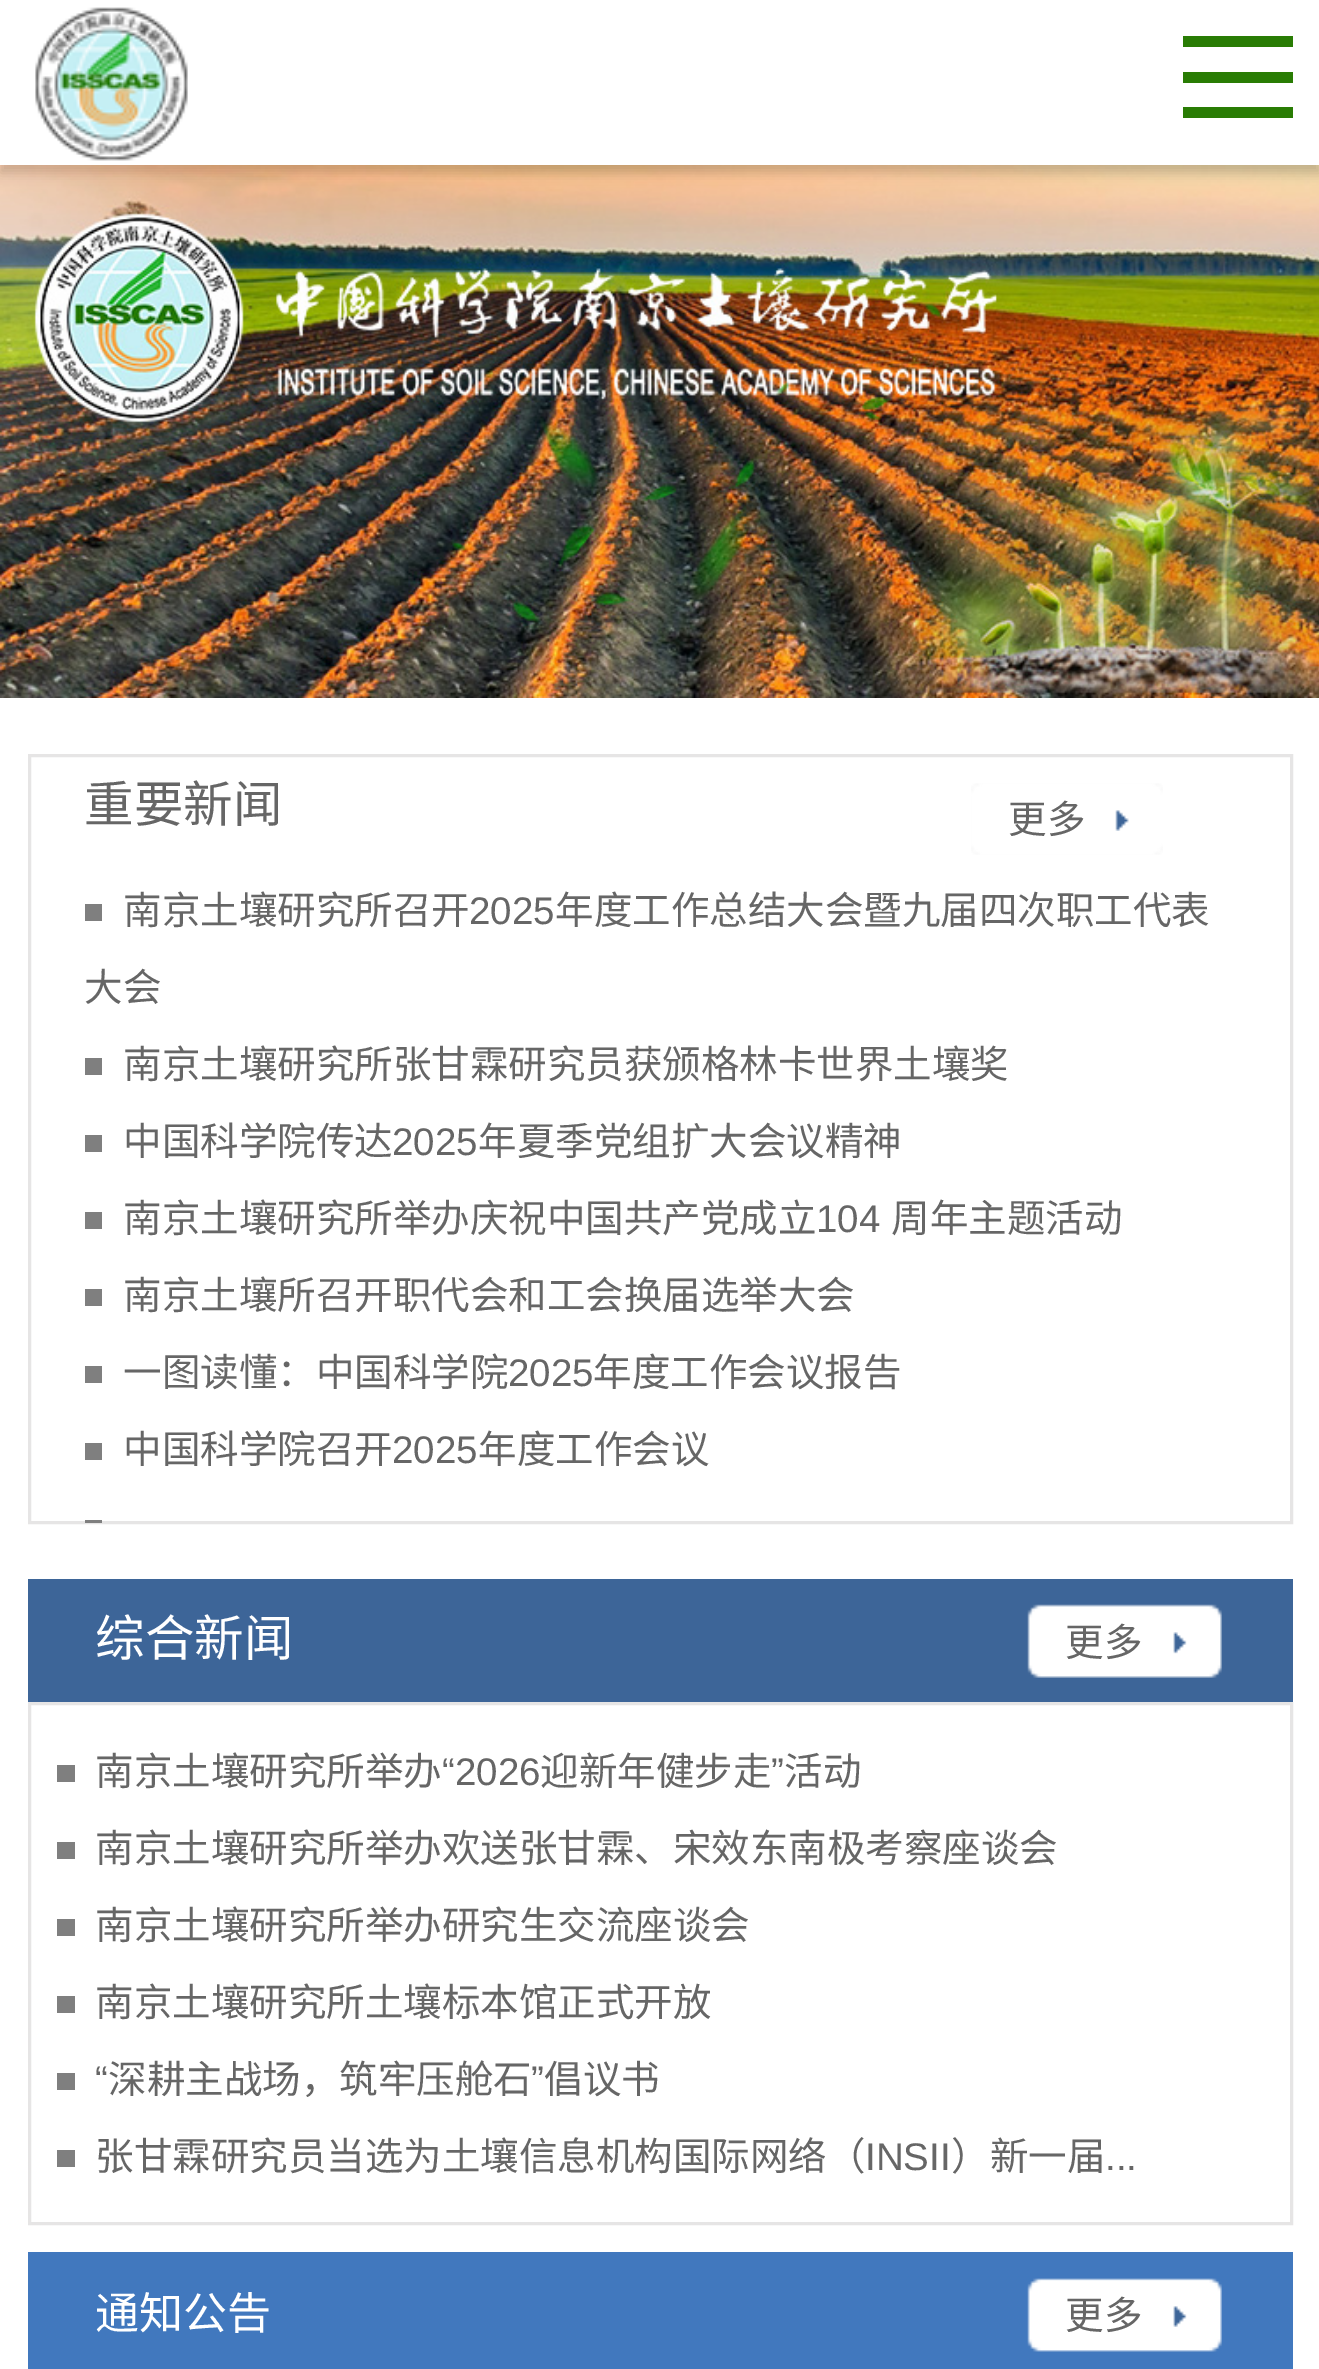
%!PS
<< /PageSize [1319 2369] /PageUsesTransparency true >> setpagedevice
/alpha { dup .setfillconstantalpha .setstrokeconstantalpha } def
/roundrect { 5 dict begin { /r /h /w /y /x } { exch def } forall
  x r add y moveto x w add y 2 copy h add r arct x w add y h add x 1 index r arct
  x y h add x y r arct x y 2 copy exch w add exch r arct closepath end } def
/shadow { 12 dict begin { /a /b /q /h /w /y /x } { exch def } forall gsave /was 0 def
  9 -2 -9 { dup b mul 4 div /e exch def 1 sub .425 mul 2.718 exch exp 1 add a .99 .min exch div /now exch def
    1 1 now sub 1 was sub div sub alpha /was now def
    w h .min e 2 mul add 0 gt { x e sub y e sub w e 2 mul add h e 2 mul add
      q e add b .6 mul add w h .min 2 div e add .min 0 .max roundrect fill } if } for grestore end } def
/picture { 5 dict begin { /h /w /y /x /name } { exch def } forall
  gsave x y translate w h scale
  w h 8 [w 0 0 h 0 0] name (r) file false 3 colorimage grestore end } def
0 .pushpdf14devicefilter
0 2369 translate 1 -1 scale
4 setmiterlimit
1 setgray
0 0 1319 2369 rectfill
(img2.rgb) 0 165 1319 533 picture
0 setgray
0 8 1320 165 0 5.5 0.18 shadow
1 setgray
0 0 1319 165 rectfill
(img1.rgb) 35 7 153 154 picture
0.161 0.486 0.016 setrgbcolor
1183 36 110 11 rectfill
1183 72 110 11 rectfill
1183 107 110 11 rectfill
0.902 0.898 0.898 setrgbcolor
3 setlinewidth
29.5 755.5 1262 767 rectstroke
/NotoSansCJKSC-Regular [49.5 0 0 -49.5 0 0] selectfont
0.4 setgray
84 822 moveto (重要新闻) show
(img3.rgb) 971 783 192 72 picture
/NotoSansCJKSC-Regular [38.5 0 0 -38.5 0 0] selectfont
1008 833 moveto (更多) show
0.498 setgray
85 904 17 17 rectfill
0.4 setgray
123 924 moveto (南京土壤研究所召开) show
/LiberationSans-Regular [38.5 0 0 -38.5 0 0] selectfont
469 924 moveto (2025) show
/NotoSansCJKSC-Regular [38.5 0 0 -38.5 0 0] selectfont
555 924 moveto (年度工作总结大会暨九届四次职工代表) show
84 1001 moveto (大会) show
0.498 setgray
85 1058 17 17 rectfill
0.4 setgray
123 1078 moveto (南京土壤研究所张甘霖研究员获颁格林卡世界土壤奖) show
0.498 setgray
85 1135 17 17 rectfill
0.4 setgray
123 1155 moveto (中国科学院传达) show
/LiberationSans-Regular [38.5 0 0 -38.5 0 0] selectfont
392 1155 moveto (2025) show
/NotoSansCJKSC-Regular [38.5 0 0 -38.5 0 0] selectfont
478 1155 moveto (年夏季党组扩大会议精神) show
0.498 setgray
85 1212 17 17 rectfill
0.4 setgray
123 1232 moveto (南京土壤研究所举办庆祝中国共产党成立) show
/LiberationSans-Regular [38.5 0 0 -38.5 0 0] selectfont
816 1232 moveto (104) show
/NotoSansCJKSC-Regular [38.5 0 0 -38.5 0 0] selectfont
891 1232 moveto (周年主题活动) show
0.498 setgray
85 1289 17 17 rectfill
0.4 setgray
123 1309 moveto (南京土壤所召开职代会和工会换届选举大会) show
0.498 setgray
85 1366 17 17 rectfill
0.4 setgray
123 1386 moveto (一图读懂：中国科学院) show
/LiberationSans-Regular [38.5 0 0 -38.5 0 0] selectfont
508 1386 moveto (2025) show
/NotoSansCJKSC-Regular [38.5 0 0 -38.5 0 0] selectfont
593 1386 moveto (年度工作会议报告) show
0.498 setgray
85 1443 17 17 rectfill
0.4 setgray
123 1463 moveto (中国科学院召开) show
/LiberationSans-Regular [38.5 0 0 -38.5 0 0] selectfont
392 1463 moveto (2025) show
/NotoSansCJKSC-Regular [38.5 0 0 -38.5 0 0] selectfont
478 1463 moveto (年度工作会议) show
0.498 setgray
85 1520 17 3 rectfill
0.239 0.396 0.596 setrgbcolor
28 1579 1265 123 rectfill
/NotoSansCJKSC-Regular [49.5 0 0 -49.5 0 0] selectfont
1 setgray
95 1656 moveto (综合新闻) show
(img4.rgb) 1027 1604 195 74 picture
/NotoSansCJKSC-Regular [38.5 0 0 -38.5 0 0] selectfont
0.4 setgray
1065 1656 moveto (更多) show
0.902 0.898 0.898 setrgbcolor
29.5 1703.5 1262 520 rectstroke
0.498 setgray
57 1765 18 17 rectfill
0.4 setgray
95 1785 moveto (南京土壤研究所举办) show
/LiberationSans-Regular [38.5 0 0 -38.5 0 0] selectfont
442 1785 moveto (“2026) show
/NotoSansCJKSC-Regular [38.5 0 0 -38.5 0 0] selectfont
540 1785 moveto (迎新年健步走) show
/LiberationSans-Regular [38.5 0 0 -38.5 0 0] selectfont
771 1785 moveto (”) show
/NotoSansCJKSC-Regular [38.5 0 0 -38.5 0 0] selectfont
784 1785 moveto (活动) show
0.498 setgray
57 1842 18 17 rectfill
0.4 setgray
95 1862 moveto (南京土壤研究所举办欢送张甘霖、宋效东南极考察座谈会) show
0.498 setgray
57 1919 18 17 rectfill
0.4 setgray
95 1939 moveto (南京土壤研究所举办研究生交流座谈会) show
0.498 setgray
57 1996 18 17 rectfill
0.4 setgray
95 2016 moveto (南京土壤研究所土壤标本馆正式开放) show
0.498 setgray
57 2073 18 17 rectfill
/LiberationSans-Regular [38.5 0 0 -38.5 0 0] selectfont
0.4 setgray
95 2093 moveto (“) show
/NotoSansCJKSC-Regular [38.5 0 0 -38.5 0 0] selectfont
108 2093 moveto (深耕主战场，筑牢压舱石) show
/LiberationSans-Regular [38.5 0 0 -38.5 0 0] selectfont
531 2093 moveto (”) show
/NotoSansCJKSC-Regular [38.5 0 0 -38.5 0 0] selectfont
544 2093 moveto (倡议书) show
0.498 setgray
57 2150 18 17 rectfill
0.4 setgray
95 2170 moveto (张甘霖研究员当选为土壤信息机构国际网络（) show
/LiberationSans-Regular [38.5 0 0 -38.5 0 0] selectfont
865 2170 moveto (INSII) show
/NotoSansCJKSC-Regular [38.5 0 0 -38.5 0 0] selectfont
951 2170 moveto (）新一届) show
/LiberationSans-Regular [38.5 0 0 -38.5 0 0] selectfont
1105 2170 moveto (...) show
0.255 0.471 0.745 setrgbcolor
28 2252 1265 117 rectfill
/NotoSansCJKSC-Regular [44 0 0 -44 0 0] selectfont
1 setgray
95 2329 moveto (通知公告) show
(img5.rgb) 1027 2278 195 74 picture
/NotoSansCJKSC-Regular [38.5 0 0 -38.5 0 0] selectfont
0.4 setgray
1065 2329 moveto (更多) show
.poppdf14devicefilter showpage
